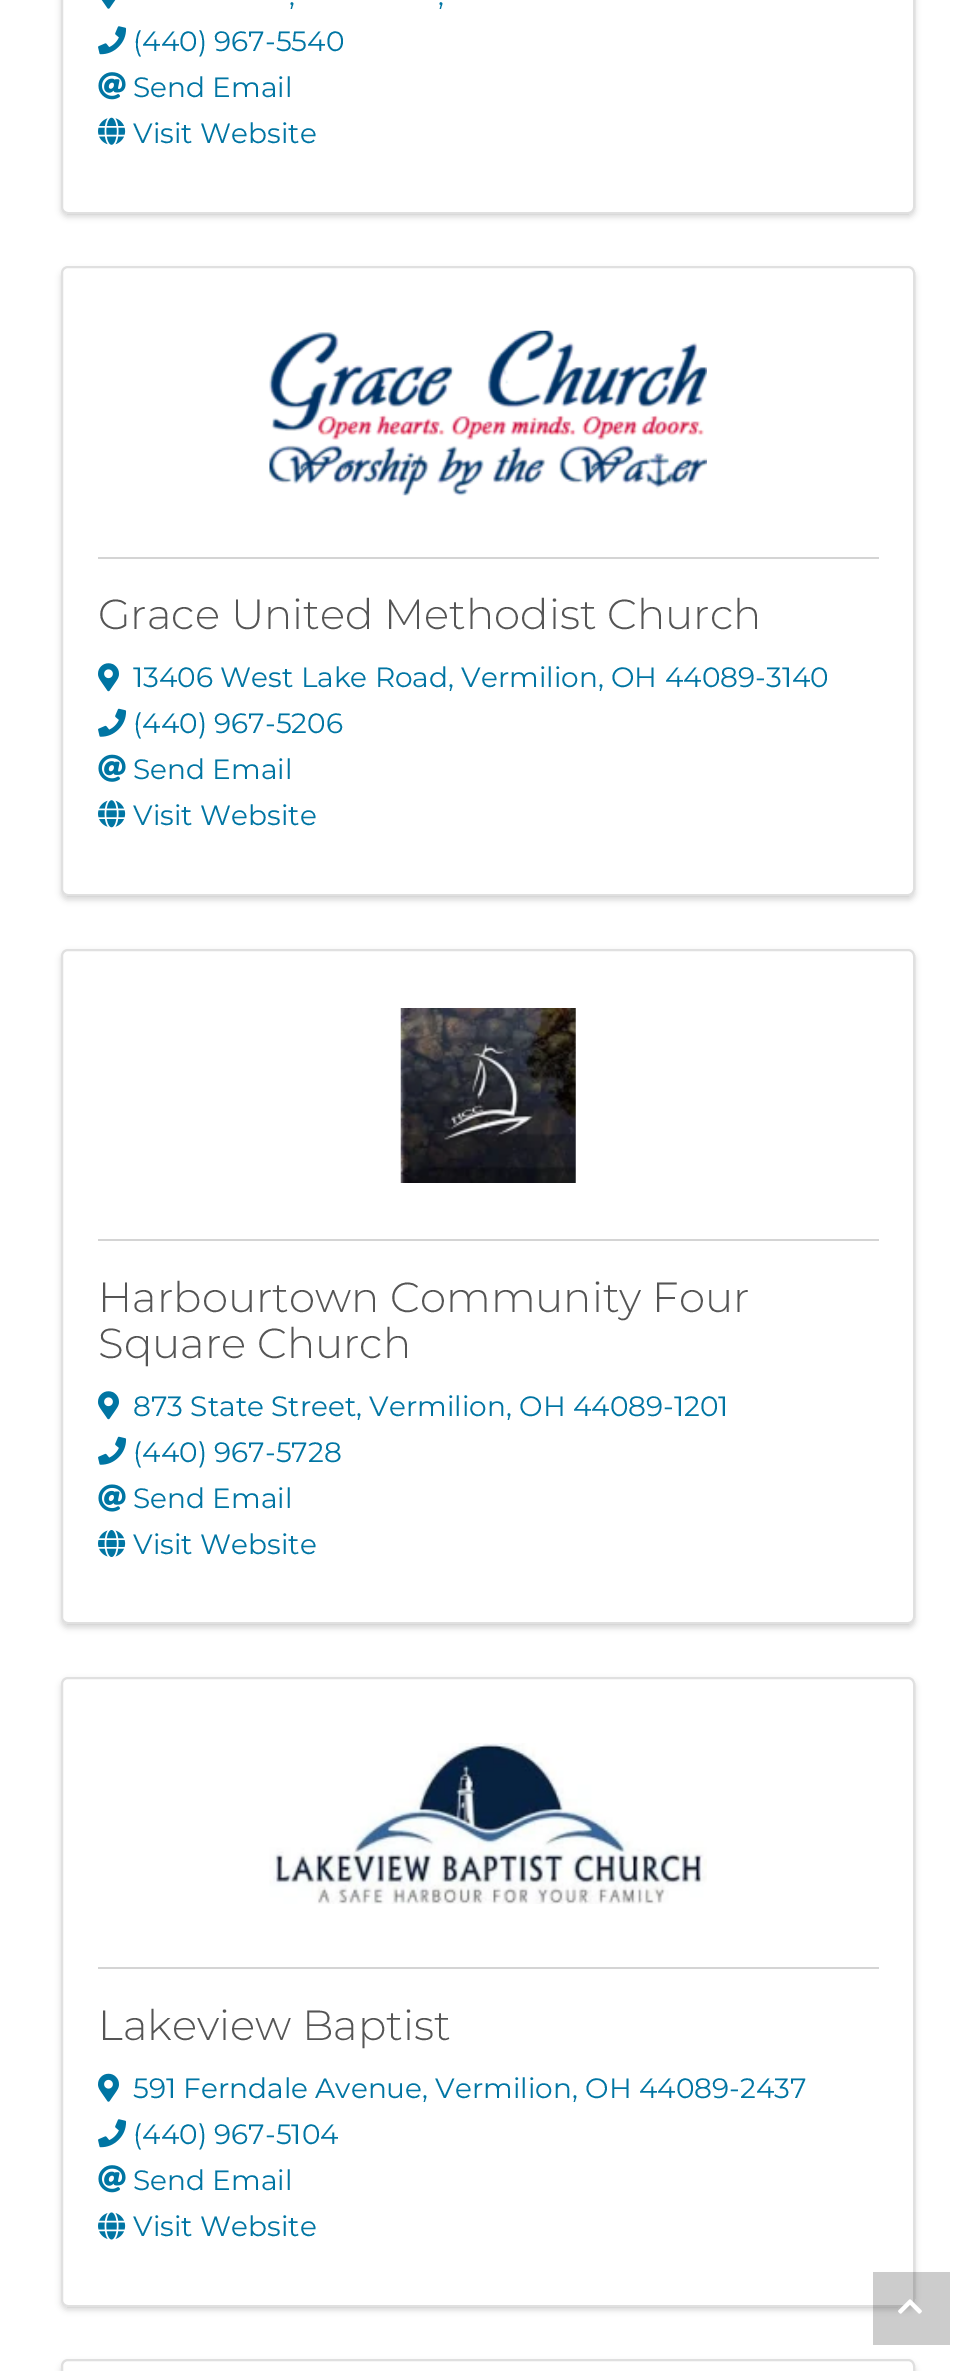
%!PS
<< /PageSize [976 2371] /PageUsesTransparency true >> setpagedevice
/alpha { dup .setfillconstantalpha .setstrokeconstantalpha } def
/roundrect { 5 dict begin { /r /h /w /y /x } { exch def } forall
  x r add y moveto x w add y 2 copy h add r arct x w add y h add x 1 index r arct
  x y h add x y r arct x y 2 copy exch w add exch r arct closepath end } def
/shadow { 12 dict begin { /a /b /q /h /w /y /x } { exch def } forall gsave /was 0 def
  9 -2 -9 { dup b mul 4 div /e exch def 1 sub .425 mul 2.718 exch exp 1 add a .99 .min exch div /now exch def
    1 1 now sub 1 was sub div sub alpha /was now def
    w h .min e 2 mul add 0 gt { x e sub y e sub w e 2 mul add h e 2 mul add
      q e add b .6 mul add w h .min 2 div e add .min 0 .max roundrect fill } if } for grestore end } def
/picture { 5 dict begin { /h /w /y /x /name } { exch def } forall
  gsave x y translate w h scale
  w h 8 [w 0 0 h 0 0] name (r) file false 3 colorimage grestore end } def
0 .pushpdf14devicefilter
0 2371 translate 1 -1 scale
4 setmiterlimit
1 setgray
0 0 976 2371 rectfill
0 setgray
61 -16 854 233 7 3 0.15 shadow
1 setgray
61 -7 854 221 7 roundrect fill
0.12 alpha
0 setgray
2 setlinewidth
62 -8 852 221 6 roundrect stroke
1 alpha
(img1.rgb) 101 0 15 9 picture
/Montserrat-Regular [28 0 0 -28 0 0] selectfont
0 0.459 0.639 setrgbcolor
289 5 moveto (,) show
438 5 moveto (,) show
(img2.rgb) 98 26 29 29 picture
133 51 moveto (\(440\) 967-5540) show
(img3.rgb) 98 72 28 28 picture
133 97 moveto (Send Email) show
(img4.rgb) 98 117 28 28 picture
133 143 moveto (Visit Website) show
0 setgray
61 270 854 630 7 3 0.15 shadow
1 setgray
61 266 854 630 7 roundrect fill
0.12 alpha
0 setgray
62 267 852 628 6 roundrect stroke
1 alpha
(img5.rgb) 269 330 438 166 picture
0.831 setgray
98 557 781 2 rectfill
/Montserrat-Light [42 0 0 -42 0 0] selectfont
0.333 setgray
98 629 moveto (Grace United Methodist Church) show
(img6.rgb) 98 663 21 29 picture
/Montserrat-Regular [28 0 0 -28 0 0] selectfont
0 0.459 0.639 setrgbcolor
133 687 moveto (13406 West Lake Road, Vermilion, OH 44089-3140) show
(img7.rgb) 98 708 29 29 picture
133 733 moveto (\(440\) 967-5206) show
(img8.rgb) 98 754 28 28 picture
133 779 moveto (Send Email) show
(img9.rgb) 98 800 28 28 picture
133 825 moveto (Visit Website) show
0 setgray
61 952 854 676 7 3 0.15 shadow
1 setgray
61 949 854 675 7 roundrect fill
0.12 alpha
0 setgray
62 950 852 673 6 roundrect stroke
1 alpha
(img10.rgb) 400 1008 176 175 picture
0.831 setgray
98 1239 781 2 rectfill
/Montserrat-Light [42 0 0 -42 0 0] selectfont
0.333 setgray
98 1312 moveto (Harbourtown Community Four) show
98 1358 moveto (Square Church) show
(img6.rgb) 98 1391 21 29 picture
/Montserrat-Regular [28 0 0 -28 0 0] selectfont
0 0.459 0.639 setrgbcolor
133 1416 moveto (873 State Street, Vermilion, OH 44089-1201) show
(img7.rgb) 98 1436 29 29 picture
133 1462 moveto (\(440\) 967-5728) show
(img11.rgb) 98 1484 28 28 picture
133 1508 moveto (Send Email) show
(img12.rgb) 98 1530 28 27 picture
133 1554 moveto (Visit Website) show
0 setgray
61 1680 854 630 7 3 0.15 shadow
1 setgray
61 1677 854 630 7 roundrect fill
0.12 alpha
0 setgray
62 1678 852 628 6 roundrect stroke
1 alpha
(img13.rgb) 269 1743 438 161 picture
0.831 setgray
98 1967 781 2 rectfill
/Montserrat-Light [42 0 0 -42 0 0] selectfont
0.333 setgray
98 2040 moveto (Lakeview Baptist) show
(img14.rgb) 98 2073 21 29 picture
/Montserrat-Regular [28 0 0 -28 0 0] selectfont
0 0.459 0.639 setrgbcolor
133 2098 moveto (591 Ferndale Avenue, Vermilion, OH 44089-2437) show
(img2.rgb) 98 2119 29 29 picture
133 2144 moveto (\(440\) 967-5104) show
(img3.rgb) 98 2165 28 28 picture
133 2190 moveto (Send Email) show
(img15.rgb) 98 2212 28 28 picture
133 2236 moveto (Visit Website) show
0 setgray
61 2363 854 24 7 3 0.15 shadow
1 setgray
62 2360 852 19 6 roundrect gsave fill grestore
0.875 setgray
stroke
0.2 alpha
0 setgray
873 2272 77 73 rectfill
1 alpha
(img16.rgb) 898 2299 24 15 picture
.poppdf14devicefilter showpage
